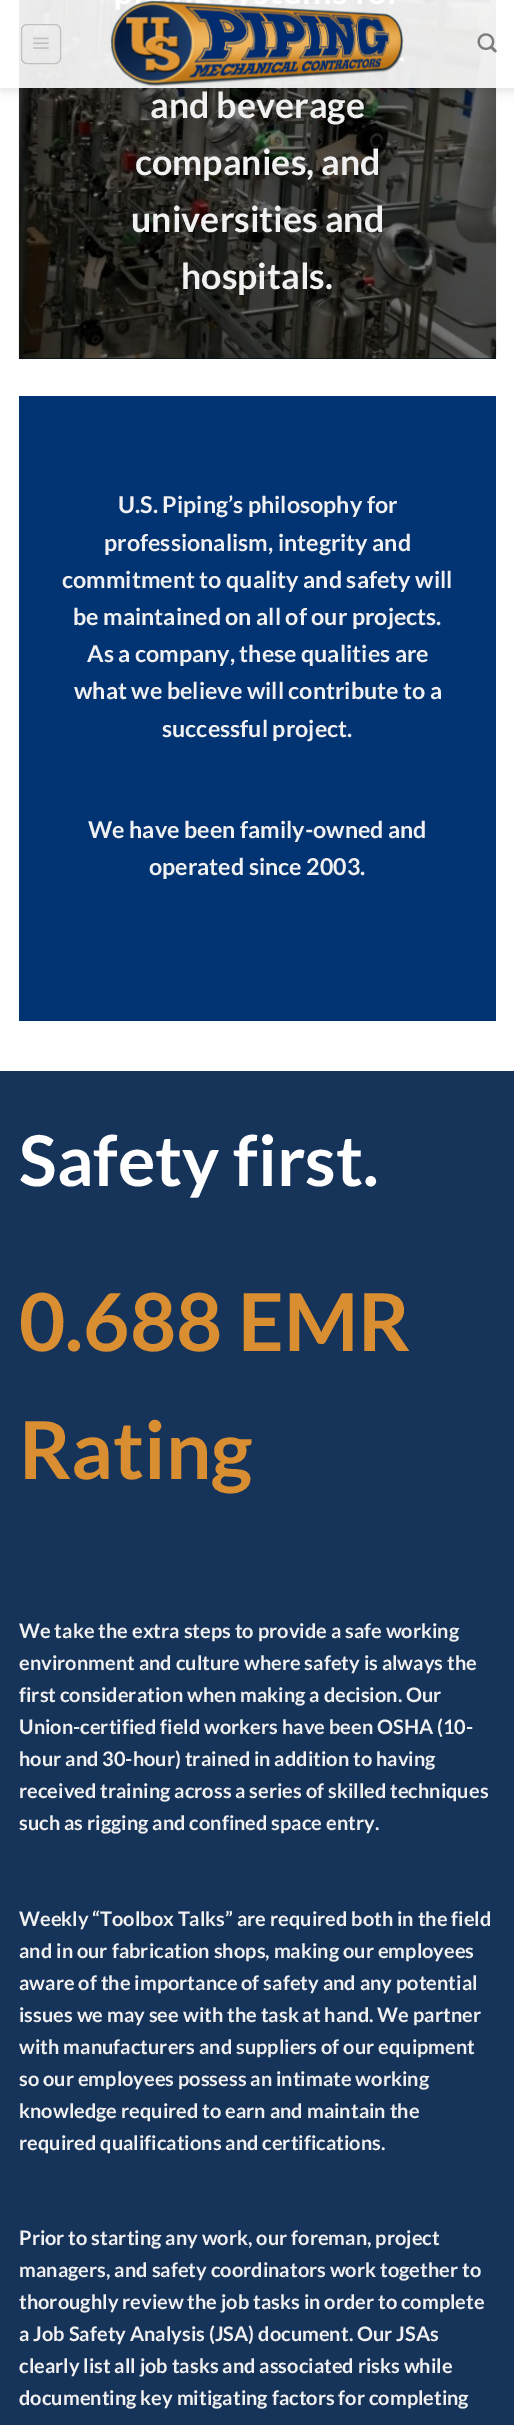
%!PS
<< /PageSize [514 2425] /PageUsesTransparency true >> setpagedevice
/alpha { dup .setfillconstantalpha .setstrokeconstantalpha } def
/roundrect { 5 dict begin { /r /h /w /y /x } { exch def } forall
  x r add y moveto x w add y 2 copy h add r arct x w add y h add x 1 index r arct
  x y h add x y r arct x y 2 copy exch w add exch r arct closepath end } def
/shadow { 12 dict begin { /a /b /q /h /w /y /x } { exch def } forall gsave /was 0 def
  9 -2 -9 { dup b mul 4 div /e exch def 1 sub .425 mul 2.718 exch exp 1 add a .99 .min exch div /now exch def
    1 1 now sub 1 was sub div sub alpha /was now def
    w h .min e 2 mul add 0 gt { x e sub y e sub w e 2 mul add h e 2 mul add
      q e add b .6 mul add w h .min 2 div e add .min 0 .max roundrect fill } if } for grestore end } def
/picture { 5 dict begin { /h /w /y /x /name } { exch def } forall
  gsave x y translate w h scale
  w h 8 [w 0 0 h 0 0] name (r) file false 3 colorimage grestore end } def
0 .pushpdf14devicefilter
0 2425 translate 1 -1 scale
4 setmiterlimit
1 setgray
0 0 514 2425 rectfill
0.004 0.075 0.114 setrgbcolor
19 358 477 1 rectfill
(img4.rgb) 18 0 479 359 picture
gsave
newpath 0 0 moveto 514 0 lineto 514 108 lineto 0 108 lineto closepath 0 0 moveto 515 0 lineto 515 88 lineto 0 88 lineto closepath eoclip newpath
0 setgray
1 1 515 88 0 6 0.15 shadow
grestore
0.9 alpha
1 setgray
0 0 514 88 rectfill
1 alpha
0.753 setgray
21.5 24.5 39 39 5.5 roundrect stroke
(img1.rgb) 33 37 16 12 picture
(img2.rgb) 110 0 294 87 picture
(img3.rgb) 477 33 20 20 picture
/Lato-Bold [35.75 0 0 -35.75 0 0] selectfont
0.945 setgray
150 118 moveto (and beverage) show
135 175 moveto (companies, and) show
131 232 moveto (universities and) show
181 289 moveto (hospitals.) show
0.008 0.2 0.451 setrgbcolor
19 396 477 625 rectfill
/Lato-Bold [23.25 0 0 -23.25 0 0] selectfont
0.945 setgray
118 513 moveto (U.S. Piping’s philosophy for) show
104 551 moveto (professionalism, integrity and) show
62 588 moveto (commitment to quality and safety will) show
73 625 moveto (be maintained on all of our projects.) show
87 662 moveto (As a company, these qualities are) show
74 699 moveto (what we believe will contribute to a) show
162 737 moveto (successful project.) show
88 838 moveto (We have been family-owned and) show
149 875 moveto (operated since 2003.) show
0.086 0.2 0.349 setrgbcolor
0 1071 514 1354 rectfill
/Lato-Bold [70 0 0 -70 0 0] selectfont
1 setgray
19 1186 moveto (Safety first.) show
/Lato-Bold [80 0 0 -80 0 0] selectfont
0.851 0.557 0.196 setrgbcolor
19 1351 moveto (0.688 EMR) show
19 1479 moveto (Rating) show
/Lato-Bold [20 0 0 -20 0 0] selectfont
0.945 setgray
19 1638 moveto (We take the extra steps to provide a safe working) show
19 1670 moveto (environment and culture where safety is always the) show
19 1702 moveto (first consideration when making a decision. Our) show
19 1734 moveto (Union-certified field workers have been OSHA \(10-) show
19 1766 moveto (hour and 30-hour\) trained in addition to having) show
19 1798 moveto (received training across a series of skilled techniques) show
19 1830 moveto (such as rigging and confined space entry.) show
19 1926 moveto (Weekly “Toolbox Talks” are required both in the field) show
19 1958 moveto (and in our fabrication shops, making our employees) show
19 1990 moveto (aware of the importance of safety and any potential) show
19 2022 moveto (issues we may see with the task at hand. We partner) show
19 2054 moveto (with manufacturers and suppliers of our equipment) show
19 2086 moveto (so our employees possess an intimate working) show
19 2118 moveto (knowledge required to earn and maintain the) show
19 2150 moveto (required qualifications and certifications.) show
19 2245 moveto (Prior to starting any work, our foreman, project) show
19 2277 moveto (managers, and safety coordinators work together to) show
19 2309 moveto (thoroughly review the job tasks in order to complete) show
19 2341 moveto (a Job Safety Analysis \(JSA\) document. Our JSAs) show
19 2373 moveto (clearly list all job tasks and associated risks while) show
19 2405 moveto (documenting key mitigating factors for completing) show
.poppdf14devicefilter showpage
